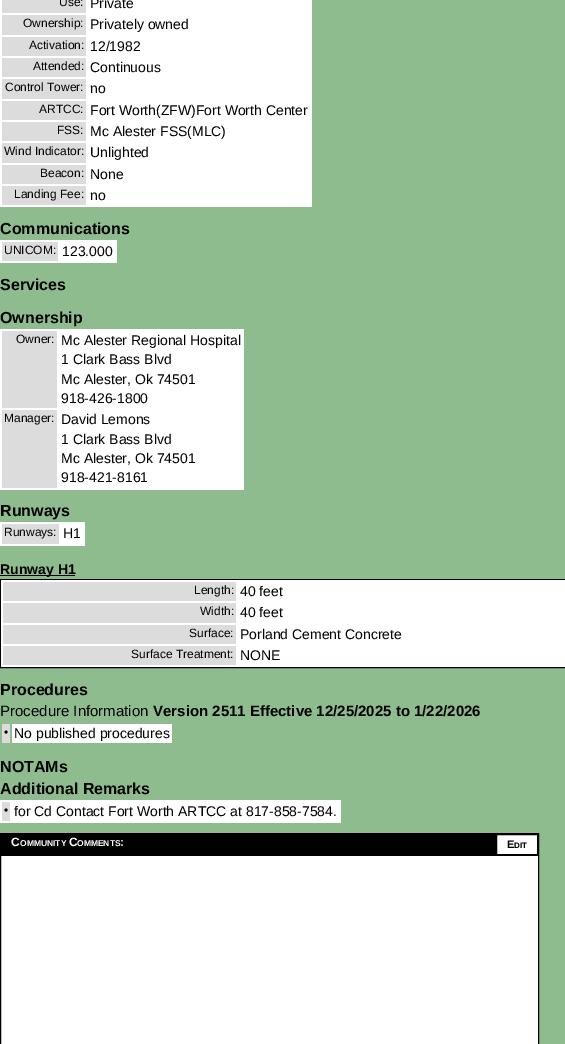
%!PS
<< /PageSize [565 1044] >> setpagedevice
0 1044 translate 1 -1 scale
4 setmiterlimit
0.561 0.737 0.561 setrgbcolor
0 0 565 1044 rectfill
1 setgray
0 0 312 207 rectfill
0.863 setgray
2 0 84 13 rectfill
/LiberationSans-Regular [12 0 0 -12 0 0] selectfont
0 setgray
59 6 moveto (Use:) show
/LiberationSans-Regular [14 0 0 -14 0 0] selectfont
90 8 moveto (Private) show
0.863 setgray
2 15 84 20 rectfill
/LiberationSans-Regular [12 0 0 -12 0 0] selectfont
0 setgray
23 27 moveto (Ownership:) show
/LiberationSans-Regular [14 0 0 -14 0 0] selectfont
90 29 moveto (Privately owned) show
0.863 setgray
2 37 84 19 rectfill
/LiberationSans-Regular [12 0 0 -12 0 0] selectfont
0 setgray
29 49 moveto (Activation:) show
/LiberationSans-Regular [14 0 0 -14 0 0] selectfont
90 51 moveto (12/1982) show
0.863 setgray
2 58 84 19 rectfill
/LiberationSans-Regular [12 0 0 -12 0 0] selectfont
0 setgray
33 70 moveto (Attended:) show
/LiberationSans-Regular [14 0 0 -14 0 0] selectfont
90 72 moveto (Continuous) show
0.863 setgray
2 79 84 20 rectfill
/LiberationSans-Regular [12 0 0 -12 0 0] selectfont
0 setgray
5 91 moveto (Control Tower:) show
/LiberationSans-Regular [14 0 0 -14 0 0] selectfont
90 93 moveto (no) show
0.863 setgray
2 101 84 19 rectfill
/LiberationSans-Regular [12 0 0 -12 0 0] selectfont
0 setgray
39 113 moveto (ARTCC:) show
/LiberationSans-Regular [14 0 0 -14 0 0] selectfont
90 115 moveto (Fort Worth\(ZFW\)Fort Worth Center) show
0.863 setgray
2 122 84 19 rectfill
/LiberationSans-Regular [12 0 0 -12 0 0] selectfont
0 setgray
57 134 moveto (FSS:) show
/LiberationSans-Regular [14 0 0 -14 0 0] selectfont
90 136 moveto (Mc Alester FSS\(MLC\)) show
0.863 setgray
2 143 84 20 rectfill
/LiberationSans-Regular [12 0 0 -12 0 0] selectfont
0 setgray
4 155 moveto (Wind Indicator:) show
/LiberationSans-Regular [14 0 0 -14 0 0] selectfont
90 157 moveto (Unlighted) show
0.863 setgray
2 165 84 19 rectfill
/LiberationSans-Regular [12 0 0 -12 0 0] selectfont
0 setgray
40 177 moveto (Beacon:) show
/LiberationSans-Regular [14 0 0 -14 0 0] selectfont
90 179 moveto (None) show
0.863 setgray
2 186 84 19 rectfill
/LiberationSans-Regular [12 0 0 -12 0 0] selectfont
0 setgray
14 198 moveto (Landing Fee:) show
/LiberationSans-Regular [14 0 0 -14 0 0] selectfont
90 200 moveto (no) show
/LiberationSans-Bold [16 0 0 -16 0 0] selectfont
0 234 moveto (Communications) show
1 setgray
0 240 117 23 rectfill
0.863 setgray
2 242 56 19 rectfill
/LiberationSans-Regular [12 0 0 -12 0 0] selectfont
0 setgray
4 254 moveto (UNICOM:) show
/LiberationSans-Regular [14 0 0 -14 0 0] selectfont
62 256 moveto (123.000) show
/LiberationSans-Bold [16 0 0 -16 0 0] selectfont
0 290 moveto (Services) show
0 323 moveto (Ownership) show
1 setgray
0 329 244 161 rectfill
0.863 setgray
2 331 55 77 rectfill
/LiberationSans-Regular [12 0 0 -12 0 0] selectfont
0 setgray
16 343 moveto (Owner:) show
/LiberationSans-Regular [14 0 0 -14 0 0] selectfont
61 345 moveto (Mc Alester Regional Hospital) show
61 364 moveto (1 Clark Bass Blvd) show
61 384 moveto (Mc Alester, Ok 74501) show
61 403 moveto (918-426-1800) show
0.863 setgray
2 410 55 78 rectfill
/LiberationSans-Regular [12 0 0 -12 0 0] selectfont
0 setgray
4 422 moveto (Manager:) show
/LiberationSans-Regular [14 0 0 -14 0 0] selectfont
61 424 moveto (David Lemons) show
61 444 moveto (1 Clark Bass Blvd) show
61 463 moveto (Mc Alester, Ok 74501) show
61 482 moveto (918-421-8161) show
/LiberationSans-Bold [16 0 0 -16 0 0] selectfont
0 516 moveto (Runways) show
1 setgray
0 522 85 24 rectfill
0.863 setgray
2 524 57 20 rectfill
/LiberationSans-Regular [12 0 0 -12 0 0] selectfont
0 setgray
4 536 moveto (Runways:) show
/LiberationSans-Regular [14 0 0 -14 0 0] selectfont
63 538 moveto (H1) show
0 575 75 1 rectfill
/LiberationSans-Bold [14 0 0 -14 0 0] selectfont
0 574 moveto (Runway H1) show
0.5 579.5 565 88 rectstroke
1 setgray
1 580 564 87 rectfill
0.863 setgray
3 582 233 19 rectfill
/LiberationSans-Regular [12 0 0 -12 0 0] selectfont
0 setgray
194 594 moveto (Length:) show
/LiberationSans-Regular [14 0 0 -14 0 0] selectfont
240 596 moveto (40 feet) show
0.863 setgray
3 603 233 20 rectfill
/LiberationSans-Regular [12 0 0 -12 0 0] selectfont
0 setgray
200 615 moveto (Width:) show
/LiberationSans-Regular [14 0 0 -14 0 0] selectfont
240 617 moveto (40 feet) show
0.863 setgray
3 625 233 19 rectfill
/LiberationSans-Regular [12 0 0 -12 0 0] selectfont
0 setgray
189 637 moveto (Surface:) show
/LiberationSans-Regular [14 0 0 -14 0 0] selectfont
240 639 moveto (Porland Cement Concrete) show
0.863 setgray
3 646 233 19 rectfill
/LiberationSans-Regular [12 0 0 -12 0 0] selectfont
0 setgray
131 658 moveto (Surface Treatment:) show
/LiberationSans-Regular [14 0 0 -14 0 0] selectfont
240 660 moveto (NONE) show
/LiberationSans-Bold [16 0 0 -16 0 0] selectfont
0 695 moveto (Procedures) show
/LiberationSans-Regular [15 0 0 -15 0 0] selectfont
0 716 moveto (Procedure Information) show
/LiberationSans-Bold [15 0 0 -15 0 0] selectfont
153 716 moveto (Version 2511 Effective 12/25/2025 to 1/22/2026) show
0.863 setgray
2 724 8 19 rectfill
/LiberationSans-Regular [12 0 0 -12 0 0] selectfont
0 setgray
4 736 moveto (•) show
1 setgray
12 724 160 19 rectfill
/LiberationSans-Regular [14 0 0 -14 0 0] selectfont
0 setgray
14 738 moveto (No published procedures) show
/LiberationSans-Bold [16 0 0 -16 0 0] selectfont
0 772 moveto (NOTAMs) show
0 794 moveto (Additional Remarks) show
1 setgray
0 800 341 23 rectfill
0.863 setgray
2 802 8 19 rectfill
/LiberationSans-Regular [12 0 0 -12 0 0] selectfont
0 setgray
4 814 moveto (•) show
/LiberationSans-Regular [14 0 0 -14 0 0] selectfont
14 816 moveto (for Cd Contact Fort Worth ARTCC at 817-858-7584.) show
1 setgray
1 856 537 188 rectfill
0 setgray
0.5 833.5 538 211 rectstroke
1 834 495 21 rectfill
/LiberationSans-Bold [12 0 0 -12 0 0] selectfont
1 setgray
11 846 moveto (C) show
/LiberationSans-Bold [8.5 0 0 -8.5 0 0] selectfont
20 846 moveto (OMMUNITY) show
/LiberationSans-Bold [12 0 0 -12 0 0] selectfont
69 846 moveto (C) show
/LiberationSans-Bold [8.5 0 0 -8.5 0 0] selectfont
77 846 moveto (OMMENTS) show
/LiberationSans-Bold [12 0 0 -12 0 0] selectfont
120 846 moveto (:) show
newpath 496.5 834.5 moveto 537.5 834.5 lineto 537.5 854.5 lineto 496.5 854.5 lineto closepath gsave fill grestore
0 setgray
stroke
/LiberationSans-Bold [11 0 0 -11 0 0] selectfont
507 848 moveto (E) show
/LiberationSans-Bold [8 0 0 -8 0 0] selectfont
514 848 moveto (DIT) show
1 855 537 1 rectfill
showpage
